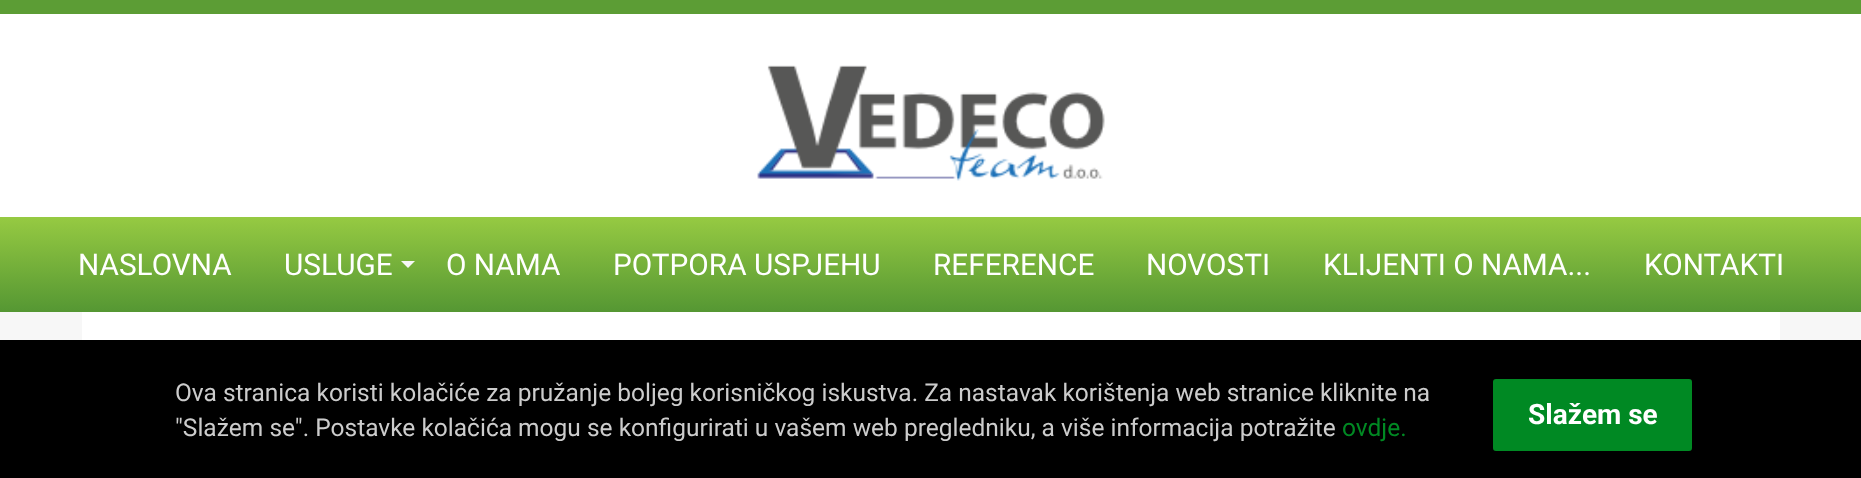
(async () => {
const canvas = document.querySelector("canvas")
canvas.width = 1861
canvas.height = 478
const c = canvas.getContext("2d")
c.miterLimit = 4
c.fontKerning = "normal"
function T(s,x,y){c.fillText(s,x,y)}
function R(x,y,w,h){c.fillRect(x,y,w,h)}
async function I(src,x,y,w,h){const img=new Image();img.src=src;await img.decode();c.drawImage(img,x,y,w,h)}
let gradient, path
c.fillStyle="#fff"
R(0,0,1861,478)
c.fillStyle="#5c9d35"
R(0,0,1861,14)
await I("1.png",757,65,348,116)
gradient = c.createLinearGradient(931,217,931,312)
gradient.addColorStop(0,"#96ca42")
gradient.addColorStop(1,"#559733")
c.fillStyle = gradient
R(0,217,1861,95)
c.font="29.75px Roboto"
c.fillStyle="#fff"
T("NASLOVNA",78,275)
T("USLUGE",284,275)
c.fillStyle="#f7f7f7"
path = new Path2D("M401 261h14l-7 7z")
c.fill(path)
c.fillStyle="#fff"
T("O NAMA",446,275)
T("POTPORA USPJEHU",613,275)
T("REFERENCE",933,275)
T("NOVOSTI",1146,275)
T("KLIJENTI O NAMA...",1323,275)
T("KONTAKTI",1644,275)
c.fillStyle="#f7f7f7"
R(0,312,1861,28)
c.fillStyle="#fff"
R(82,312,1698,28)
c.fillStyle="#000"
R(0,340,1861,138)
c.font="24.5px Roboto"
c.fillStyle="#ccc"
T("Ova stranica koristi kolačiće za pružanje boljeg korisničkog iskustva. Za nastavak korištenja web stranice kliknite na",175,401)
c.fillStyle="#008923"
c.beginPath()
c.roundRect(1491,377,203,76,5)
c.fill()
c.strokeStyle="#000"
c.lineWidth=4
c.stroke()
c.font="bold 28px Roboto"
c.fillStyle="#fff"
T("Slažem se",1528,424)
c.font="24.5px Roboto"
c.fillStyle="#ccc"
T("\"Slažem se\". Postavke kolačića mogu se konfigurirati u vašem web pregledniku, a više informacija potražite",175,436)
c.fillStyle="#008923"
T("ovdje.",1342,436)
})()
